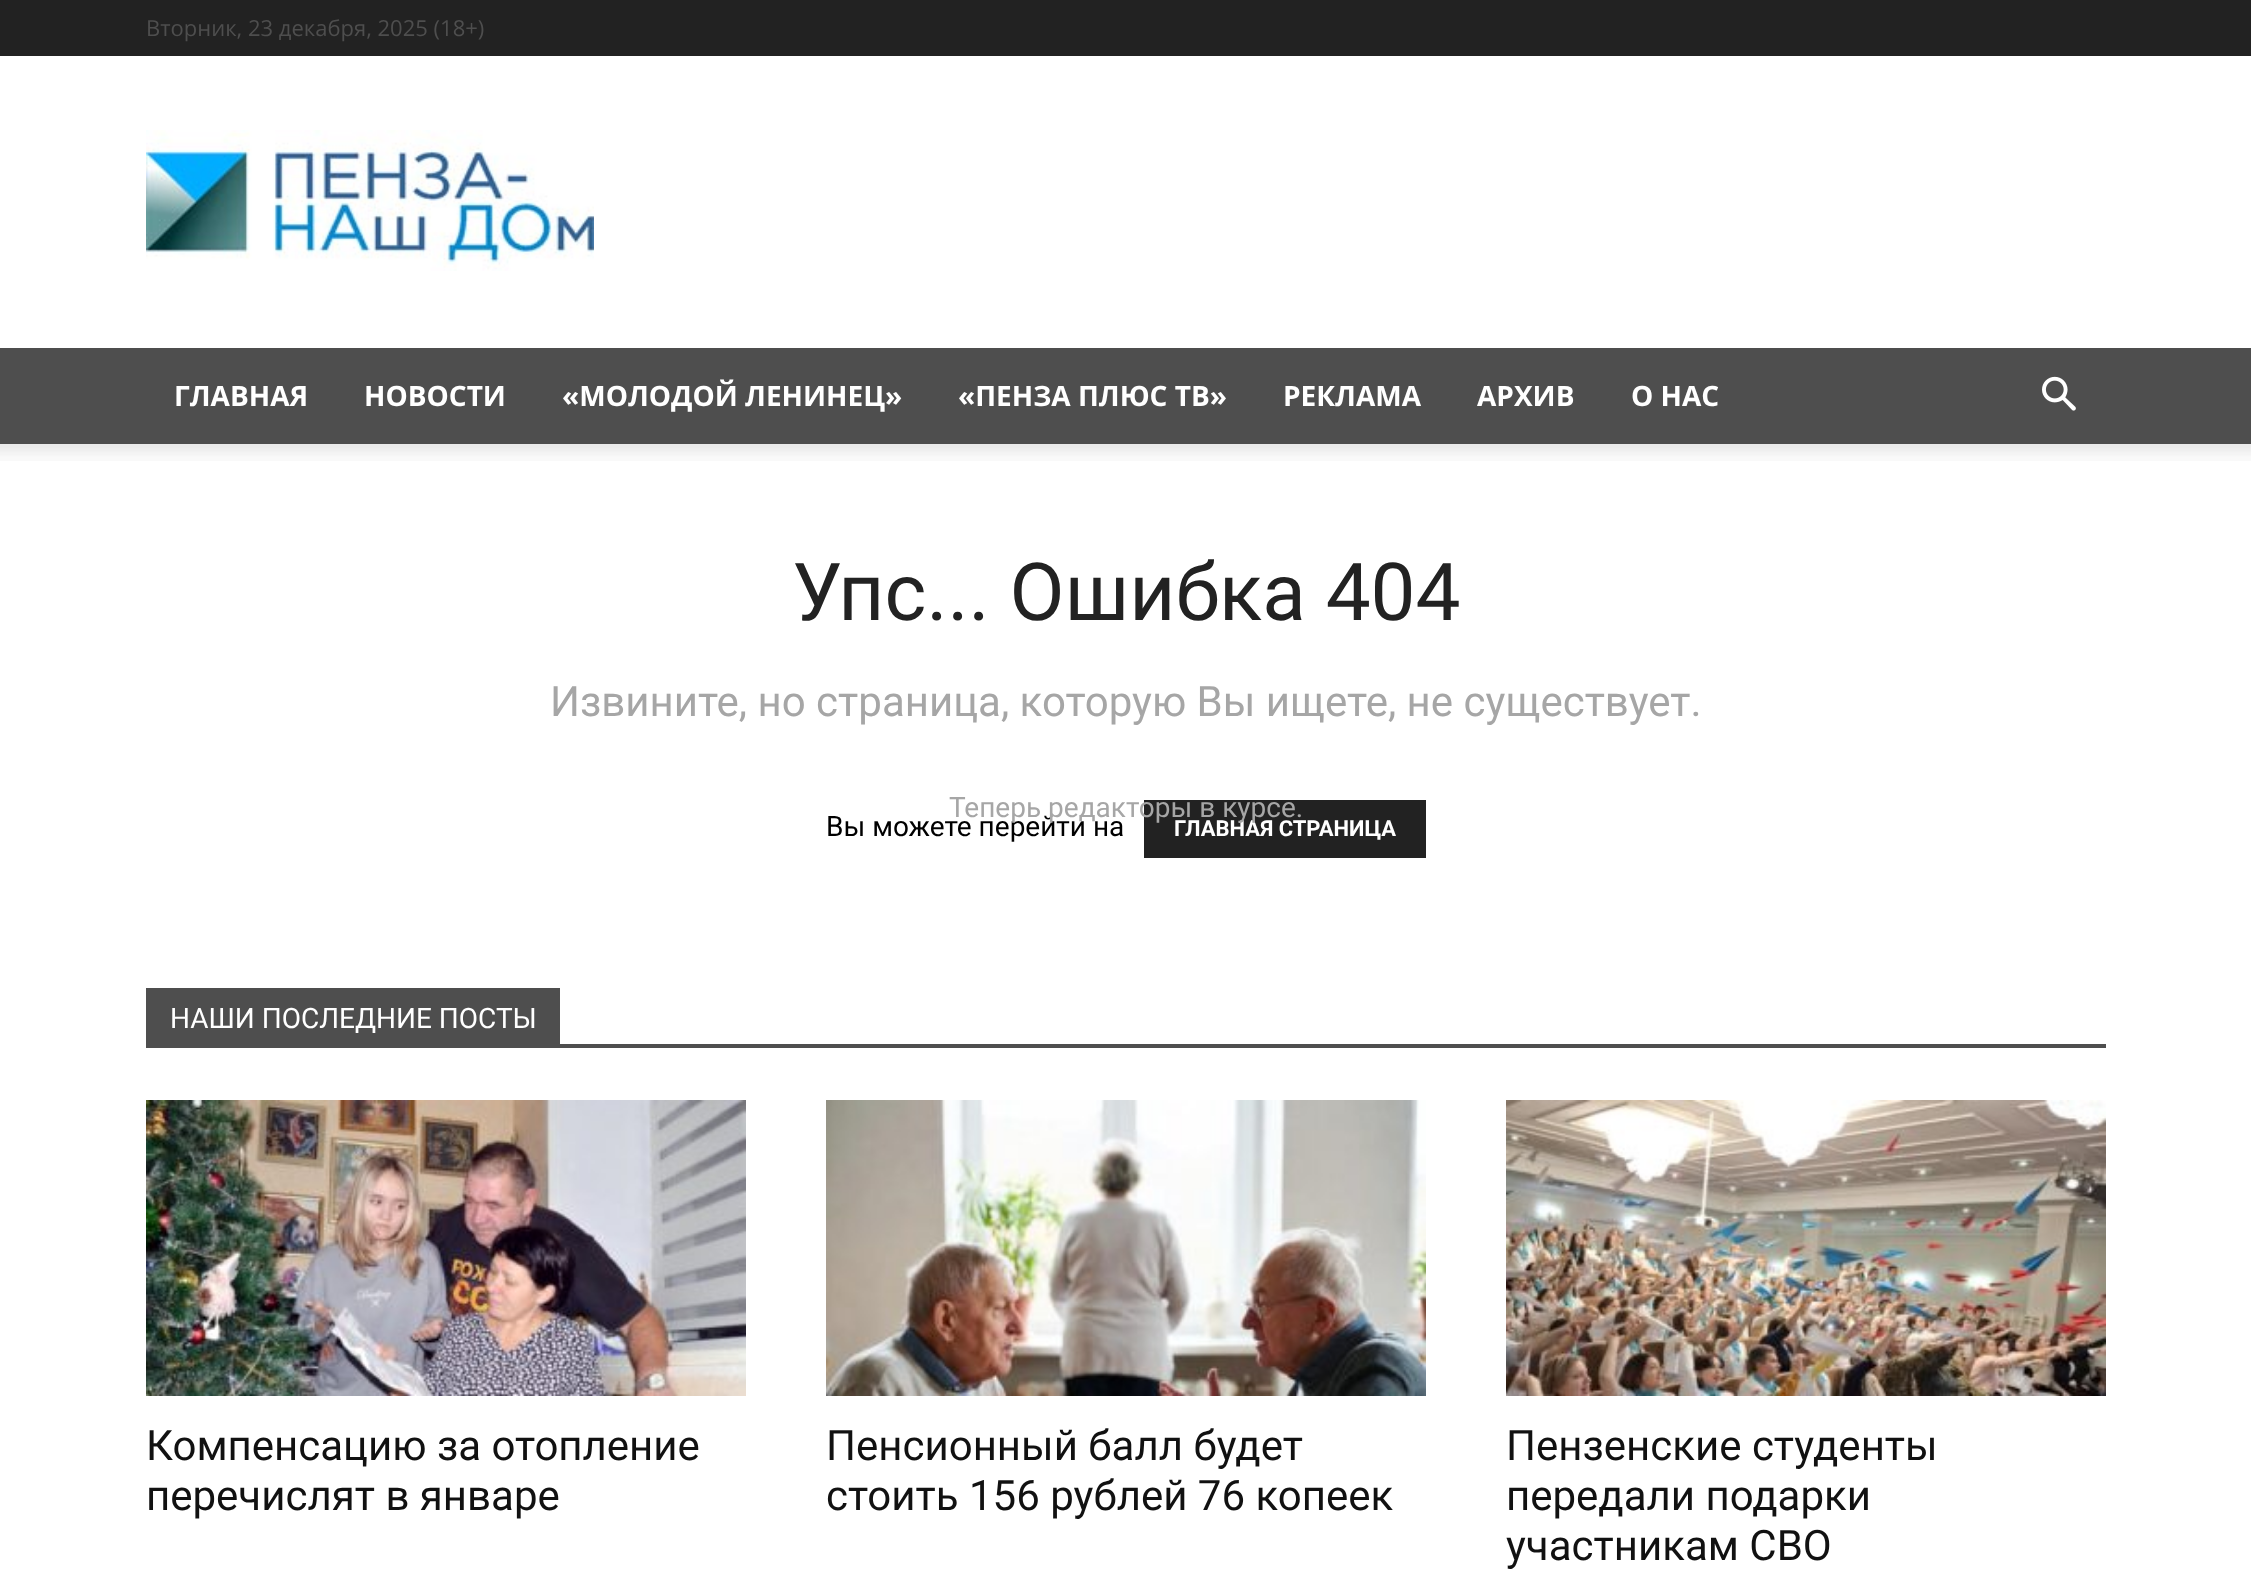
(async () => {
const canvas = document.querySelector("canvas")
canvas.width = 2251
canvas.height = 1580
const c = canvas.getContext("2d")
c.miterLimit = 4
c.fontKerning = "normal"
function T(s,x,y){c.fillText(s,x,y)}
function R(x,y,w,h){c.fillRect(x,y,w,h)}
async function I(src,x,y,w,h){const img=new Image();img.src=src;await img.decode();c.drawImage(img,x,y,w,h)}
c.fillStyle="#fff"
R(0,0,2251,1580)
c.fillStyle="#222"
R(0,0,2251,56)
c.font="22px Open Sans"
c.fillStyle="#4e4e4e"
T("Вторник, 23 декабря, 2025 (18+)",146,36)
await I("1.png",146,130,448,141)
R(0,348,2251,96)
c.font="bold 28px Open Sans"
c.fillStyle="#fff"
T("ГЛАВНАЯ",174,406)
T("НОВОСТИ",364,406)
T("«МОЛОДОЙ ЛЕНИНЕЦ»",562,406)
T("«ПЕНЗА ПЛЮС ТВ»",958,406)
T("РЕКЛАМА",1283,406)
T("АРХИВ",1477,406)
T("О НАС",1631,406)
await I("2.png",2042,376,34,35)
await I("3.png",0,444,2251,17)
c.font="80px Roboto"
c.fillStyle="#222"
T("Упс... Ошибка 404",792,620)
c.font="42px Roboto"
c.fillStyle="#a6a6a6"
T("Извините, но страница, которую Вы ищете, не существует.",550,716)
c.font="28px Roboto"
c.fillStyle="#000"
T("Вы можете перейти на",826,836)
c.fillStyle="#222"
R(1144,800,282,58)
c.font="bold 22px Roboto"
c.fillStyle="#fff"
T("ГЛАВНАЯ СТРАНИЦА",1174,836)
c.fillStyle="#4e4e4e"
R(146,1044,1960,4)
R(146,988,414,56)
c.font="28px Roboto"
c.fillStyle="#fff"
T("НАШИ ПОСЛЕДНИЕ ПОСТЫ",170,1028)
await I("4.png",146,1100,600,296)
c.font="42px Roboto"
c.fillStyle="#111"
T("Компенсацию за отопление",146,1460)
T("перечислят в январе",146,1510)
await I("5.png",826,1100,600,296)
T("Пенсионный балл будет",826,1460)
T("стоить 156 рублей 76 копеек",826,1510)
await I("6.png",1506,1100,600,296)
T("Пензенские студенты",1506,1460)
T("передали подарки",1506,1510)
T("участникам СВО",1506,1560)
c.font="28px Roboto"
c.fillStyle="#a6a6a6"
T("Теперь редакторы в курсе.",949,817)
})()
